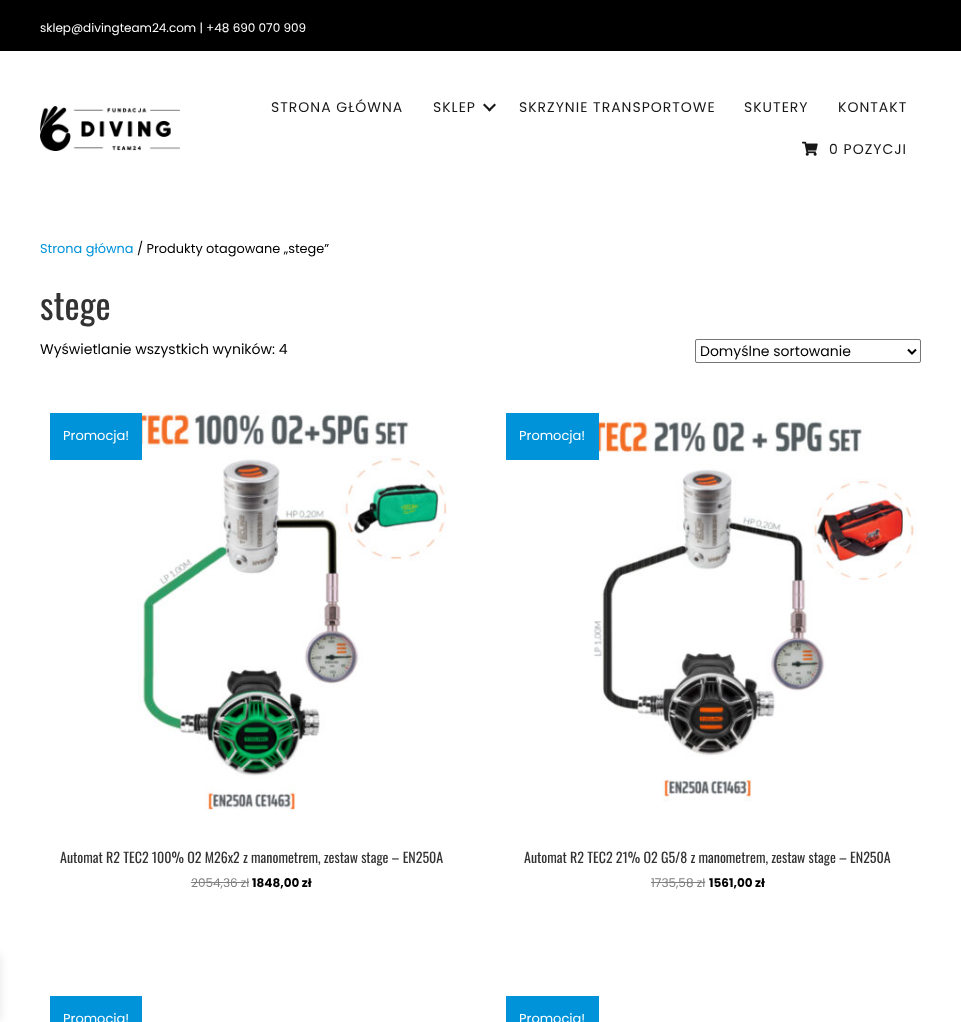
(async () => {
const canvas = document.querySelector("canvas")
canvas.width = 961
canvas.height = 1022
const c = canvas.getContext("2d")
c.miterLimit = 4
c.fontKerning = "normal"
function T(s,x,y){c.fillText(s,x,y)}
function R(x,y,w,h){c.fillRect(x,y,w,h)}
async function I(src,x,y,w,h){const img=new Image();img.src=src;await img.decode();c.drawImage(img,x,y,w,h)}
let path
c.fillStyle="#fff"
R(0,0,961,1022)
c.fillStyle="#0000001a"
c.filter="blur(5px)"
c.beginPath()
c.rect(-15,955,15,66)
c.fill()
c.filter="none"
c.fillStyle="#000"
R(0,0,961,51)
c.font="12px Poppins"
c.fillStyle="#fff"
T("sklep@divingteam24.com | +48 690 070 909",40,32)
await I("1.png",40,106,140,45)
c.letterSpacing="1px"
c.font="14px Poppins"
c.fillStyle="#171717"
T("STRONA GŁÓWNA",271,112)
T("SKLEP",433,112)
path = new Path2D("M494.5 103.5l1.5 1.5l-6.5 6.5l-1.5-1.5z")
c.fill(path)
path = new Path2D("M484.5 103.5l6.5 6.5l-1.5 1.5l-6.5-6.5z")
c.fill(path)
T("SKRZYNIE TRANSPORTOWE",519,112)
T("SKUTERY",744,112)
T("KONTAKT",838,112)
await I("2.png",802,141,16,15)
T("0 POZYCJI",829,154)
c.letterSpacing="0px"
c.font="12.9px Poppins"
c.fillStyle="#0093d9"
T("Strona główna",40,253)
c.fillStyle="#000"
T("/ Produkty otagowane „stege”",137,253)
c.font="36px Oswald"
c.fillStyle="#333"
T("stege",40,320)
c.font="14px Poppins"
c.fillStyle="#000"
T("Wyświetlanie wszystkich wyników: 4",40,354)
c.beginPath()
c.roundRect(695.5,339.5,225,23,1.5)
c.strokeStyle="#767676"
c.stroke()
path = new Path2D("M908 349.5l4 4l4-4")
c.strokeStyle="#000"
c.lineWidth=2
c.stroke(path)
T("Domyślne sortowanie",700,356)
await I("3.png",93,410,354,401)
c.fillStyle="#0093d9"
R(50,413,92,47)
c.font="13px Poppins"
c.fillStyle="#fff"
T("Promocja!",63,440)
c.font="14px Oswald"
c.fillStyle="#333"
T("Automat R2 TEC2 100% O2 M26x2 z manometrem, zestaw stage – EN250A",60,863)
c.font="12px Poppins"
c.fillStyle="#808080"
T("2054,36 zł",191,887)
R(191,882,58,1)
c.font="bold 12px Poppins"
c.fillStyle="#000"
T("1848,00 zł",252,887)
await I("4.png",549,418,368,384)
c.fillStyle="#0093d9"
R(506,413,93,47)
c.font="13px Poppins"
c.fillStyle="#fff"
T("Promocja!",519,440)
c.font="14px Oswald"
c.fillStyle="#333"
T("Automat R2 TEC2 21% O2 G5/8 z manometrem, zestaw stage – EN250A",524,863)
c.font="12px Poppins"
c.fillStyle="#808080"
T("1735,58 zł",651,887)
R(651,882,54,1)
c.font="bold 12px Poppins"
c.fillStyle="#000"
T("1561,00 zł",709,887)
c.fillStyle="#0093d9"
R(50,996,92,26)
c.font="13px Poppins"
c.fillStyle="#fff"
T("Promocja!",63,1023)
c.fillStyle="#0093d9"
R(506,996,93,26)
c.fillStyle="#fff"
T("Promocja!",519,1023)
})()
